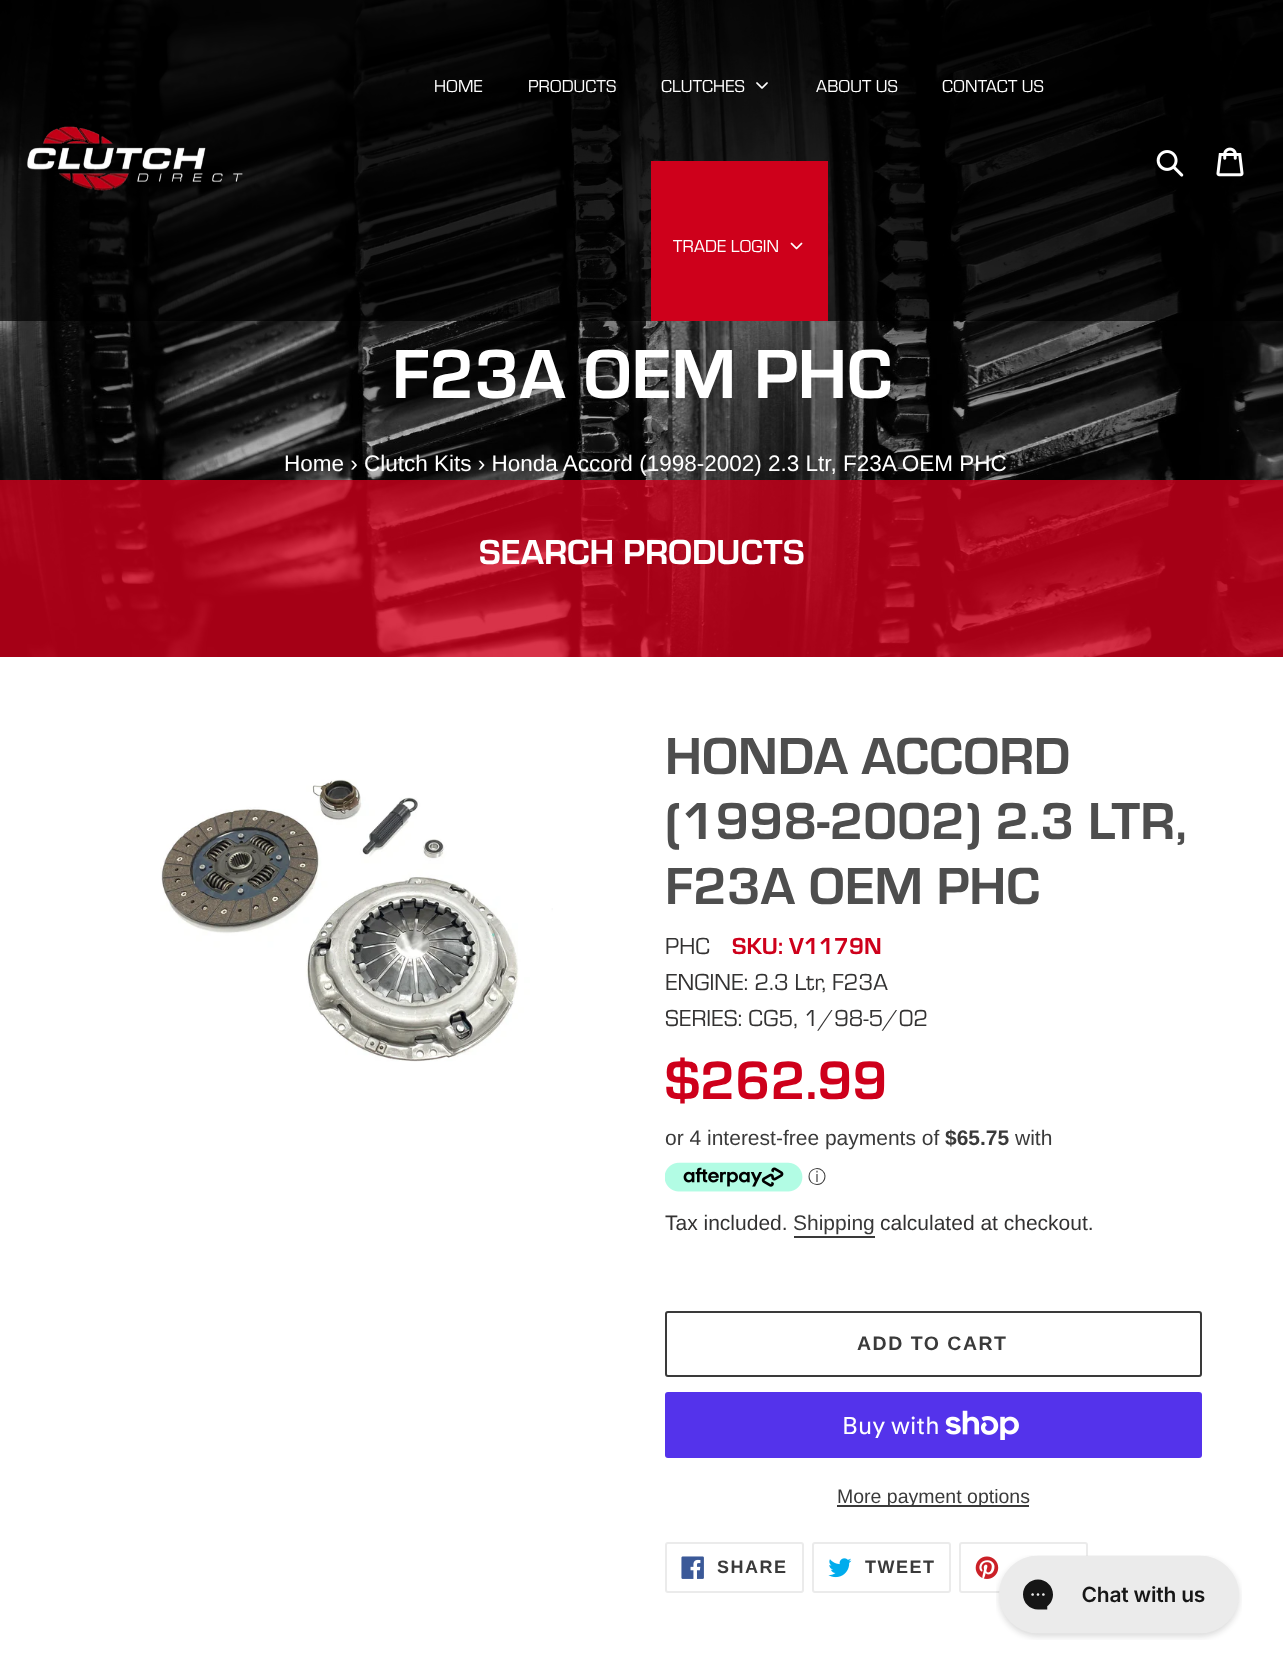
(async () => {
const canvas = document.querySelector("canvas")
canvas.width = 1283
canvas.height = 1673
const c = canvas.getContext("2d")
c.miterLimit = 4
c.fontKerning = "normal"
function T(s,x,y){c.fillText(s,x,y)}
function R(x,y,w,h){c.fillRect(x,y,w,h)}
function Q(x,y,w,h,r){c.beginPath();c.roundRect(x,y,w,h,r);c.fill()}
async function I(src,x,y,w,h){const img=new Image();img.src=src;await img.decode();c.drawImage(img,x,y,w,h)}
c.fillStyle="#fff"
R(0,0,1283,1673)
await I("6.png",0,0,1283,657)
c.fillStyle="#000000b3"
R(0,0,1283,321)
await I("1.png",27,126,216,65)
c.font="18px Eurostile"
c.fillStyle="#fff"
T("HOME",434,92)
T("PRODUCTS",528,92)
T("CLUTCHES",661,92)
await I("2.png",756,82,12,7)
T("ABOUT US",816,92)
T("CONTACT US",942,92)
c.fillStyle="#ce001b"
R(651,161,177,160)
c.fillStyle="#fff"
T("TRADE LOGIN",673,252)
await I("3.png",790,242,13,8)
await I("4.png",1156,150,28,27)
await I("5.png",1216,147,28,30)
c.font="bold 72px Eurostile"
T("F23A OEM PHC",392,398)
c.font="22.5px Liberation Sans"
T("Home › Clutch Kits › Honda Accord (1998-2002) 2.3 Ltr, F23A OEM PHC",284,471)
c.fillStyle="#ce001bcc"
R(0,480,1283,177)
c.font="bold 36px Eurostile"
c.fillStyle="#fff"
T("SEARCH PRODUCTS",479,564)
await I("7.png",160,779,393,283)
c.font="bold 54px Eurostile"
c.fillStyle="#4e4e4e"
T("HONDA ACCORD",665,774)
T("(1998-2002) 2.3 LTR,",665,839)
T("F23A OEM PHC",665,904)
c.font="24px Eurostile"
c.fillStyle="#333232"
T("PHC",665,954)
c.font="bold 24px Eurostile"
c.fillStyle="#ce001b"
T("SKU: V1179N",732,954)
c.font="24px Eurostile"
c.fillStyle="#333232"
T("ENGINE: 2.3 Ltr, F23A",665,990)
T("SERIES: CG5, 1/98-5/02",665,1026)
c.font="bold 56px Eurostile"
c.fillStyle="#ce001b"
T("$262.99",665,1099)
c.font="21px Liberation Sans"
c.fillStyle="#3a3a3a"
T("or 4 interest-free payments of",665,1145)
c.font="bold 21px Liberation Sans"
T("$65.75",945,1145)
c.font="21px Liberation Sans"
T("with",1015,1145)
await I("8.png",665,1162,138,30)
c.font="500 18px WenQuanYi Zen Hei"
T("ⓘ",808,1183)
c.font="21px Liberation Sans"
c.fillStyle="#333232"
T("Tax included.",665,1230)
c.fillStyle="#3a3a3a"
T("Shipping",793,1230)
R(794,1236,81,2)
c.fillStyle="#333232"
T("calculated at checkout.",880,1230)
c.beginPath()
c.roundRect(666,1312,535,64,2)
c.strokeStyle="#3a3a3a"
c.lineWidth=2
c.stroke()
c.letterSpacing="1.5px"
c.font="bold 19.5px Liberation Sans"
c.fillStyle="#3a3a3a"
T("ADD TO CART",857,1350)
c.fillStyle="#5433eb"
Q(665,1392,537,66,3)
c.letterSpacing="0px"
c.font="24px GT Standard"
c.fillStyle="#fff"
T("Buy with",842,1434)
await I("9.png",945,1410,74,30)
c.fillStyle="#3a3a3a"
R(837,1505,192,2)
c.font="19.5px Liberation Sans"
T("More payment options",837,1503)
c.beginPath()
c.roundRect(666,1543,137,49,2)
c.strokeStyle="#ebebeb"
c.stroke()
await I("10.png",681,1556,23,23)
c.letterSpacing="1.5px"
c.font="bold 18px Liberation Sans"
T("SHARE",717,1573)
c.beginPath()
c.roundRect(813,1543,137,49,2)
c.stroke()
await I("11.png",828,1558,24,20)
T("TWEET",865,1573)
c.beginPath()
c.roundRect(960,1543,127,49,2)
c.stroke()
await I("12.png",975,1556,24,23)
await I("13.png",996,1555,246,85)
})()
